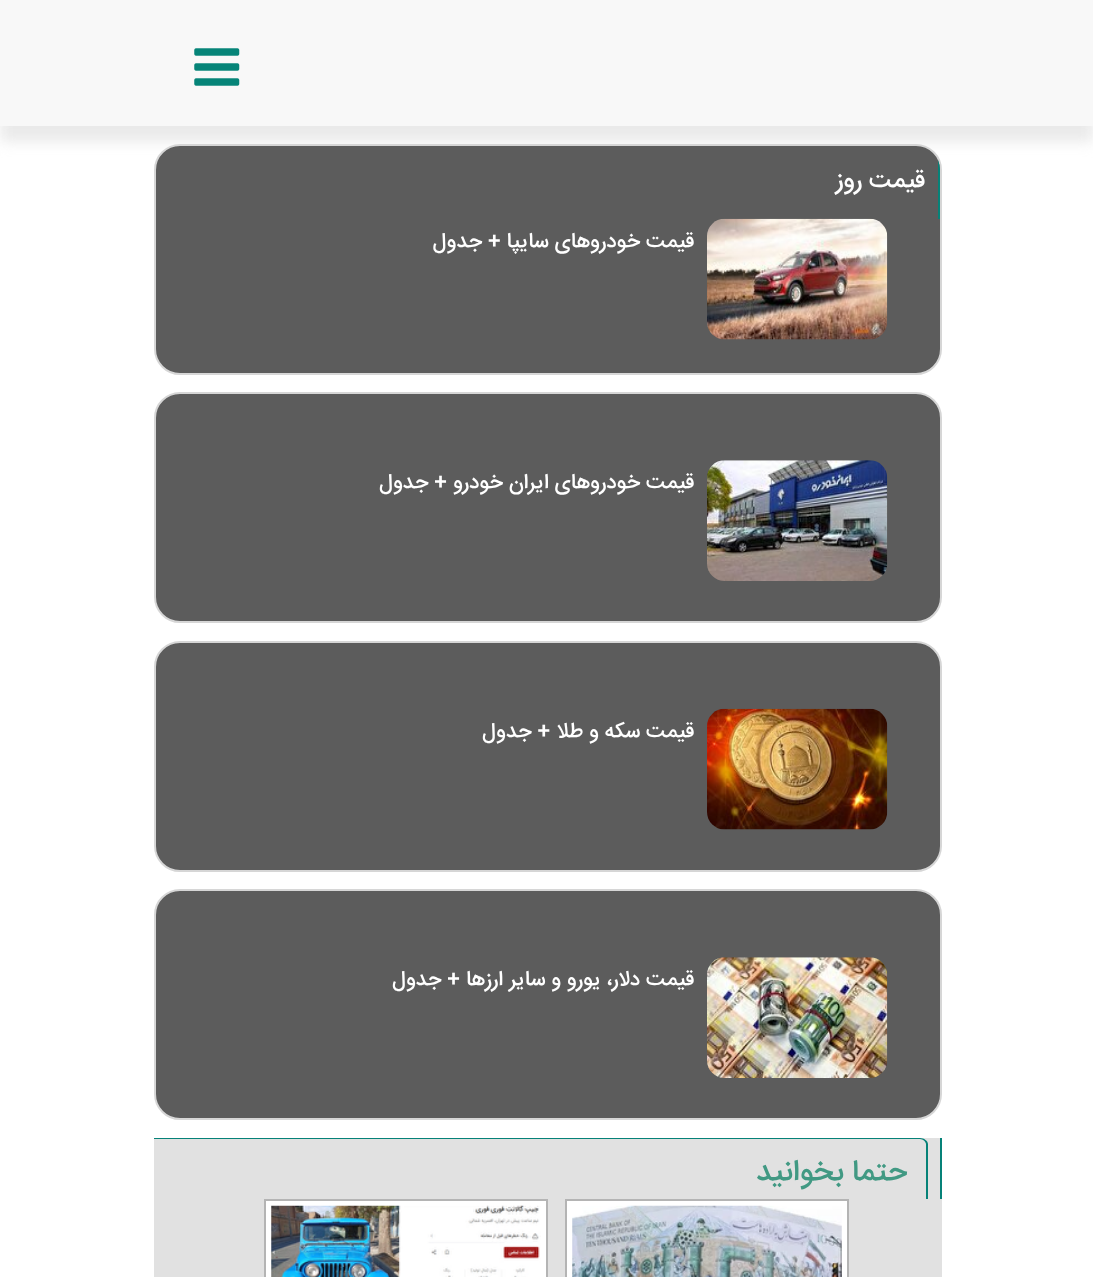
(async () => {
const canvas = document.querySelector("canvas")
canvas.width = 1093
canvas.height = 1277
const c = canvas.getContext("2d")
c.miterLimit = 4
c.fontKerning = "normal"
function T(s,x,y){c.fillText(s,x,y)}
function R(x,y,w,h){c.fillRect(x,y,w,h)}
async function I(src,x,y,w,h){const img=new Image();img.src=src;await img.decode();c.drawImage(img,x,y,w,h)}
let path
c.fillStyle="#fff"
R(0,0,1093,1277)
c.fillStyle="#e3e3e3bf"
c.filter="blur(7px)"
c.beginPath()
c.rect(0,16,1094,126)
c.fill()
c.filter="none"
c.fillStyle="#f8f8f8"
R(0,0,1093,126)
await I("1.png",194,48,46,38)
c.fillStyle="#5c5c5c"
c.beginPath()
c.roundRect(155,145,786,229,25)
c.fill()
c.strokeStyle="#d6d6d6"
c.lineWidth=2
c.stroke()
c.save()
c.beginPath()
c.roundRect(156,145,784,228,25)
c.clip()
c.fillStyle="#068278"
R(938,160,2,59)
c.restore()
c.direction="rtl"
c.font="500 24.5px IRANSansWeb"
c.fillStyle="#fff"
T("قیمت روز",925,187)
await I("2.png",707,218,181,122)
c.font="500 21px IRANSansWeb"
T("قیمت خودرو‌های سایپا + جدول",694,247)
c.fillStyle="#5c5c5c"
c.beginPath()
c.roundRect(155,393,786,229,25)
c.fill()
c.stroke()
await I("3.png",707,460,181,121)
c.fillStyle="#fff"
T("قیمت خودرو‌های ایران خودرو + جدول",694,488)
c.fillStyle="#5c5c5c"
c.beginPath()
c.roundRect(155,642,786,229,25)
c.fill()
c.stroke()
await I("4.png",707,708,181,122)
c.fillStyle="#fff"
T("قیمت سکه و طلا + جدول",694,737)
c.fillStyle="#5c5c5c"
c.beginPath()
c.roundRect(155,890,786,229,25)
c.fill()
c.stroke()
await I("5.png",707,957,181,121)
c.fillStyle="#fff"
T("قیمت دلار، یورو و سایر ارز‌ها + جدول",694,985)
c.fillStyle="#e1e1e1"
R(154,1138,788,139)
c.fillStyle="#068278"
R(940,1138,2,61)
path = new Path2D("M154 1138h766c4 0 8 3 8 6v55h-774zm0 1h766c3 0 6 3 6 5v55h-772z")
c.fill(path,"evenodd")
c.font="500 29.75px IRANSansWeb"
c.fillStyle="#419983"
T("حتما بخوانید",907,1180)
c.fillStyle="#fff"
c.beginPath()
c.rect(566,1200,282,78)
c.fill()
c.strokeStyle="#b4b4b4"
c.stroke()
await I("6.png",572,1205,270,72)
c.beginPath()
c.rect(265,1200,282,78)
c.fill()
c.stroke()
await I("7.png",271,1205,270,72)
})()
